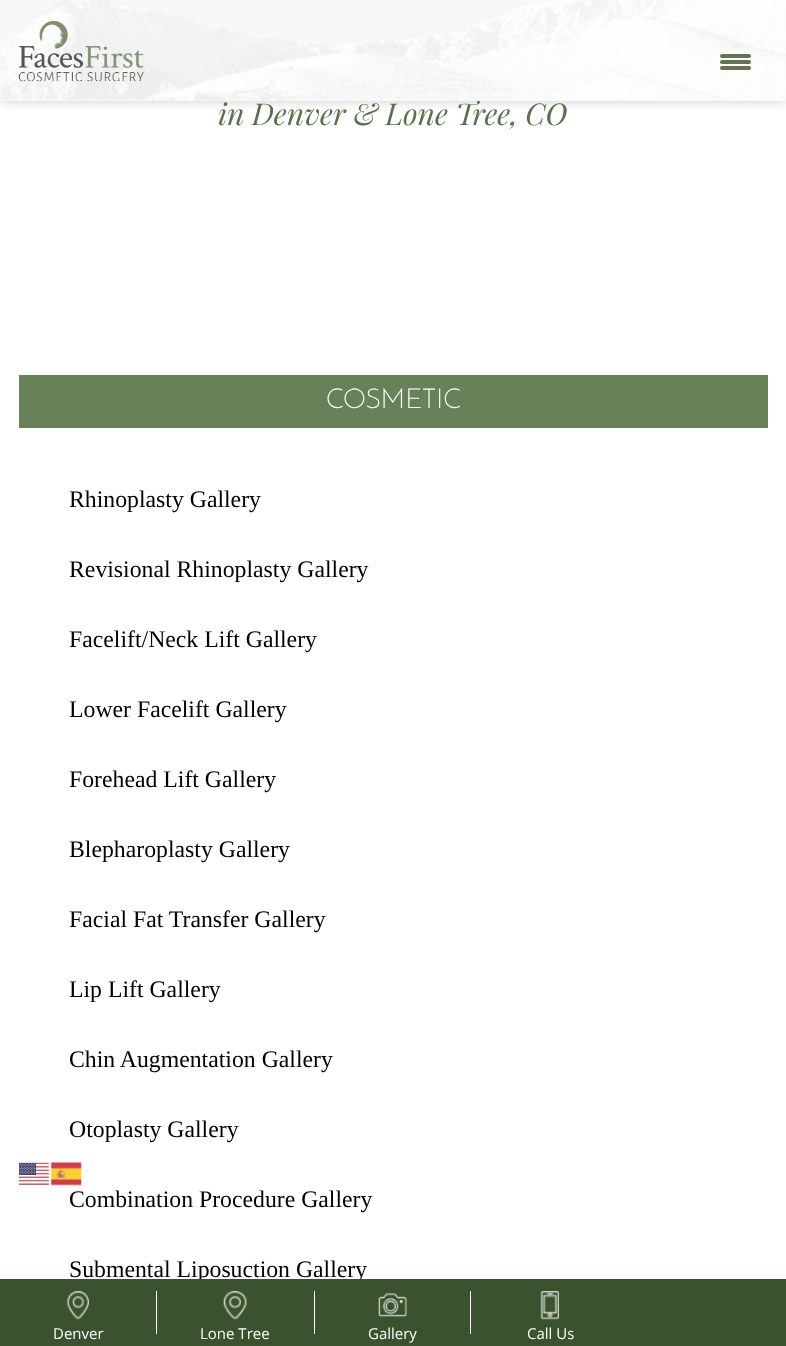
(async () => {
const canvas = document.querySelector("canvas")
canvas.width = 786
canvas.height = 1346
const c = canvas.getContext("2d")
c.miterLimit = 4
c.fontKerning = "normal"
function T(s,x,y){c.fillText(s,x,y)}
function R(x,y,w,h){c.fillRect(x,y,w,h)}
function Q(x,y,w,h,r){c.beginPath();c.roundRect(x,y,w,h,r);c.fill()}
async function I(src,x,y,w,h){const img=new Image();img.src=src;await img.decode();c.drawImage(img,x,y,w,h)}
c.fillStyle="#fff"
R(0,0,786,1346)
c.fillStyle="#00000033"
c.filter="blur(6px)"
c.beginPath()
c.rect(0,0,786,101)
c.fill()
c.filter="none"
c.font="italic 30px Playfair Display"
c.fillStyle="#587349"
T("in Denver & Lone Tree, CO",218,125)
c.fillStyle="#f8f8f8"
R(0,0,786,101)
await I("1.png",1,0,785,101)
await I("2.png",18,21,126,61)
c.fillStyle="#637450"
Q(720,60,31,4,2)
Q(720,54,31,4,2)
Q(720,66,31,4,2)
await I("3.png",19,1162,30,23)
await I("4.png",51,1162,31,24)
c.fillStyle="#678258"
R(19,375,749,53)
c.font="300 27.5px Josefin Sans"
c.fillStyle="#fff"
T("COSMETIC",326,408)
c.font="23.75px Liberation Serif"
c.fillStyle="#000"
T("Rhinoplasty Gallery",69,507)
T("Revisional Rhinoplasty Gallery",69,577)
T("Facelift/Neck Lift Gallery",69,647)
T("Lower Facelift Gallery",69,717)
T("Forehead Lift Gallery",69,787)
T("Blepharoplasty Gallery",69,857)
T("Facial Fat Transfer Gallery",69,927)
T("Lip Lift Gallery",69,997)
T("Chin Augmentation Gallery",69,1067)
T("Otoplasty Gallery",69,1137)
T("Combination Procedure Gallery",69,1207)
T("Submental Liposuction Gallery",69,1277)
c.fillStyle="#3a522d"
R(0,1279,786,67)
c.fillStyle="#fff"
R(156,1291,1,43)
await I("5.png",66,1291,23,29)
c.font="15px Open Sans"
T("Denver",53,1339)
R(314,1291,1,43)
await I("6.png",223,1291,24,29)
T("Lone Tree",200,1339)
R(470,1291,1,43)
await I("7.png",378,1293,29,24)
T("Gallery",368,1339)
await I("8.png",540,1291,19,29)
T("Call Us",527,1339)
})()
